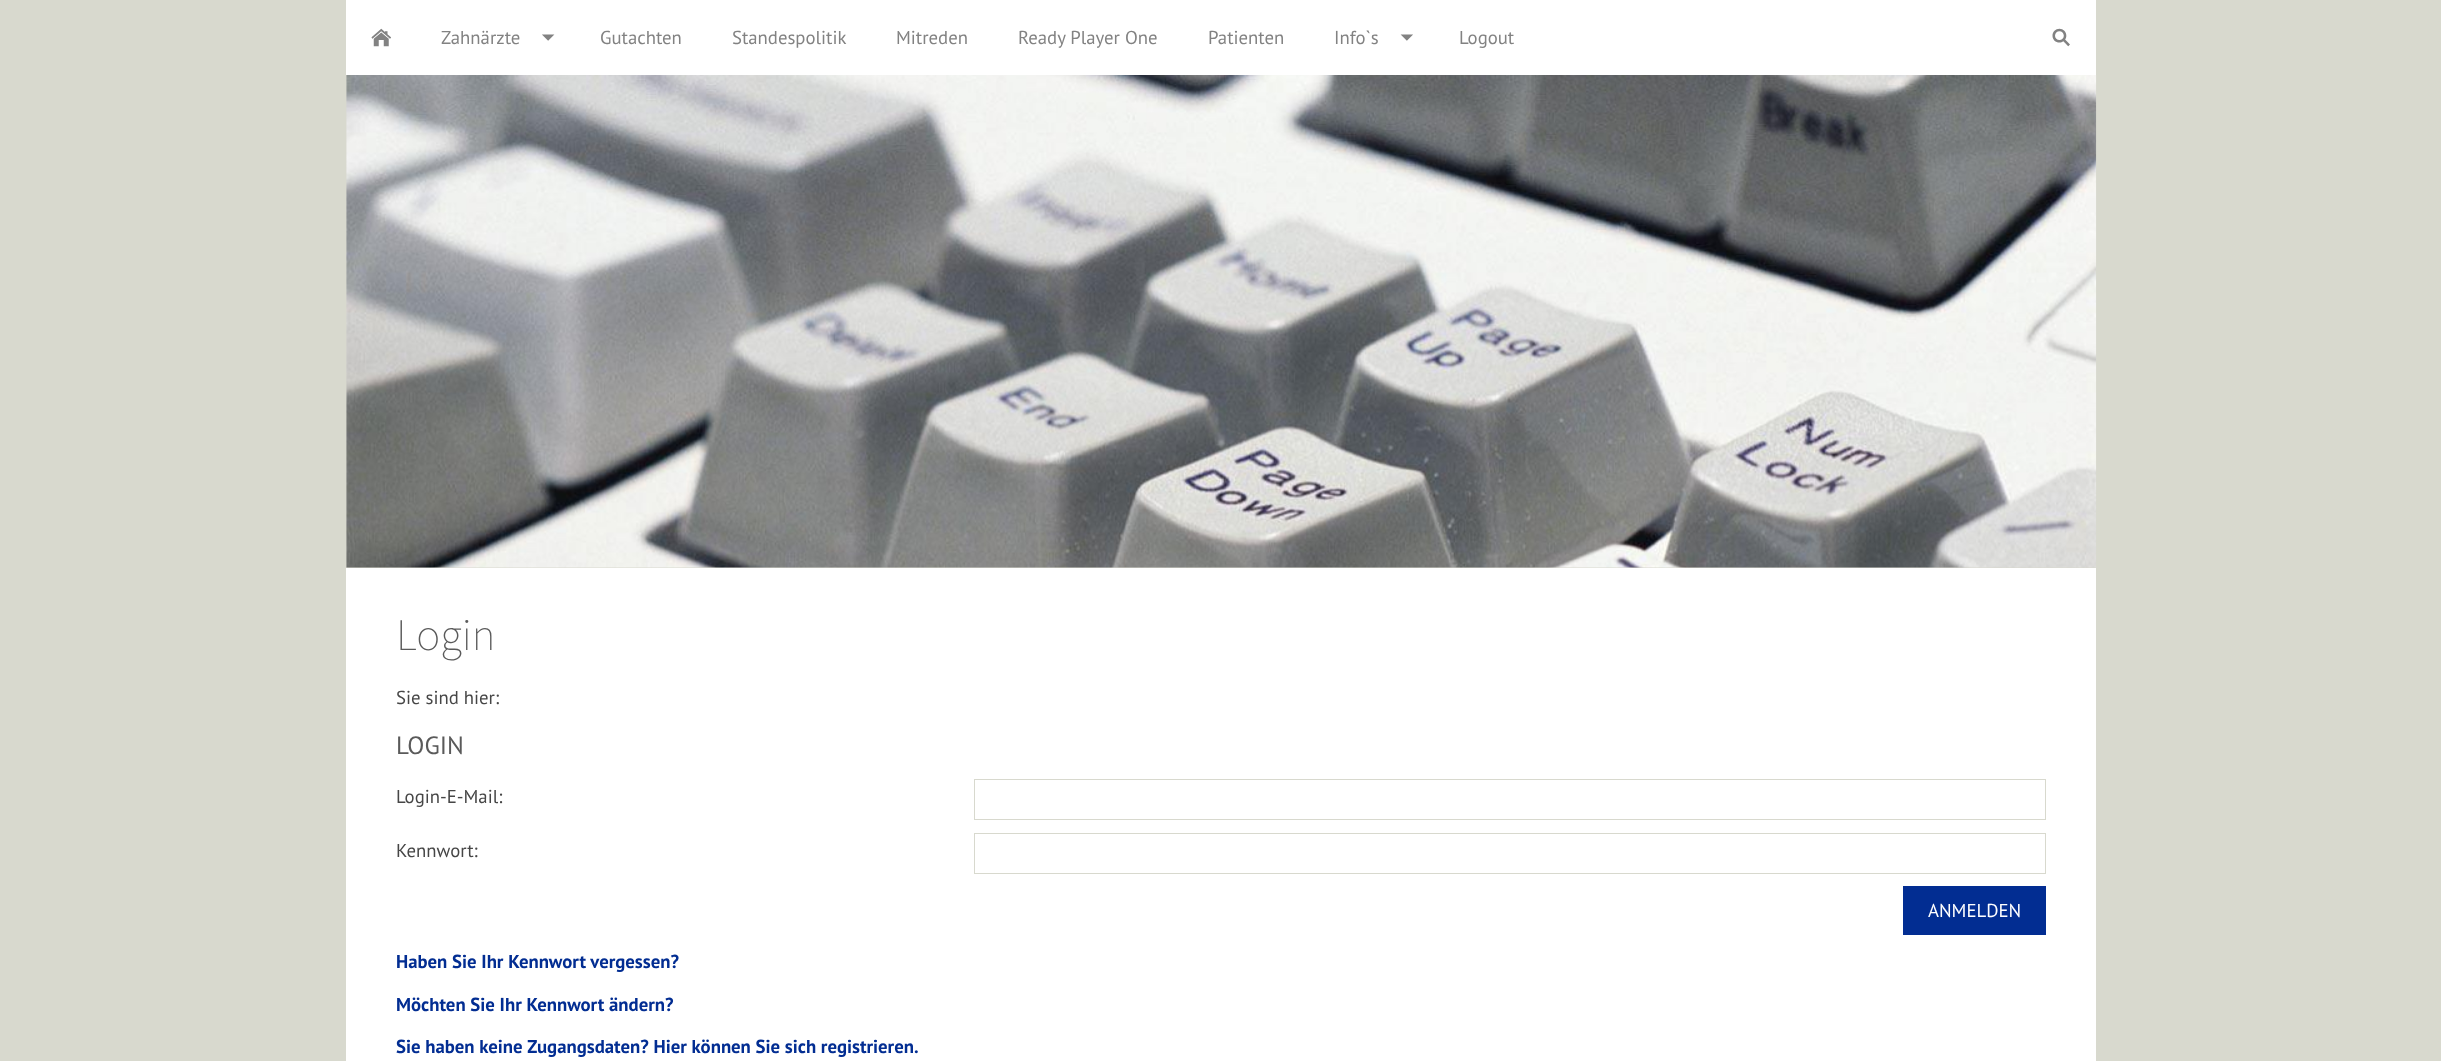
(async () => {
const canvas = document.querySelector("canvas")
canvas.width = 2441
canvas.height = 1061
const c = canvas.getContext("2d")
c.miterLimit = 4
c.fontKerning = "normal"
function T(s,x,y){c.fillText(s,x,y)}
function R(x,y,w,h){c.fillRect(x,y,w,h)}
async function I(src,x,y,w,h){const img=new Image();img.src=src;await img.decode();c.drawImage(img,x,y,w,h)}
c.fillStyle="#d8d9ce"
R(0,0,2441,1061)
c.fillStyle="#fff"
R(346,0,1750,75)
await I("1.png",371,28,20,19)
await I("2.png",542,34,13,7)
c.font="18.75px PT Sans"
c.fillStyle="#828282"
T("Zahnärzte",441,44)
T("Gutachten",600,44)
T("Standespolitik",732,44)
T("Mitreden",896,44)
T("Ready Player One",1018,44)
T("Patienten",1208,44)
await I("3.png",1400,34,13,7)
T("Info`s",1334,44)
T("Logout",1459,44)
await I("4.png",2052,28,18,19)
await I("5.png",346,75,1751,493)
c.fillStyle="#fff"
R(346,568,1750,493)
c.font="200 45px Source Sans Pro"
c.fillStyle="#5a5a5a"
T("Login",396,650)
c.font="18.75px PT Sans"
c.fillStyle="#464646"
T("Sie sind hier:",396,704)
c.font="25px PT Sans"
c.fillStyle="#5a5a5a"
T("LOGIN",396,754)
c.font="18.75px PT Sans"
c.fillStyle="#464646"
T("Login-E-Mail:",396,803)
c.strokeStyle="#d8d9ce"
c.strokeRect(974.5,779.5,1071,40)
T("Kennwort:",396,857)
c.strokeRect(974.5,833.5,1071,40)
c.fillStyle="#022d92"
R(1903,886,143,49)
c.fillStyle="#fff"
T("ANMELDEN",1928,917)
c.font="bold 18.75px PT Sans"
c.fillStyle="#022d92"
T("Haben Sie Ihr Kennwort vergessen?",396,968)
T("Möchten Sie Ihr Kennwort ändern?",396,1011)
T("Sie haben keine Zugangsdaten? Hier können Sie sich registrieren.",396,1053)
})()
